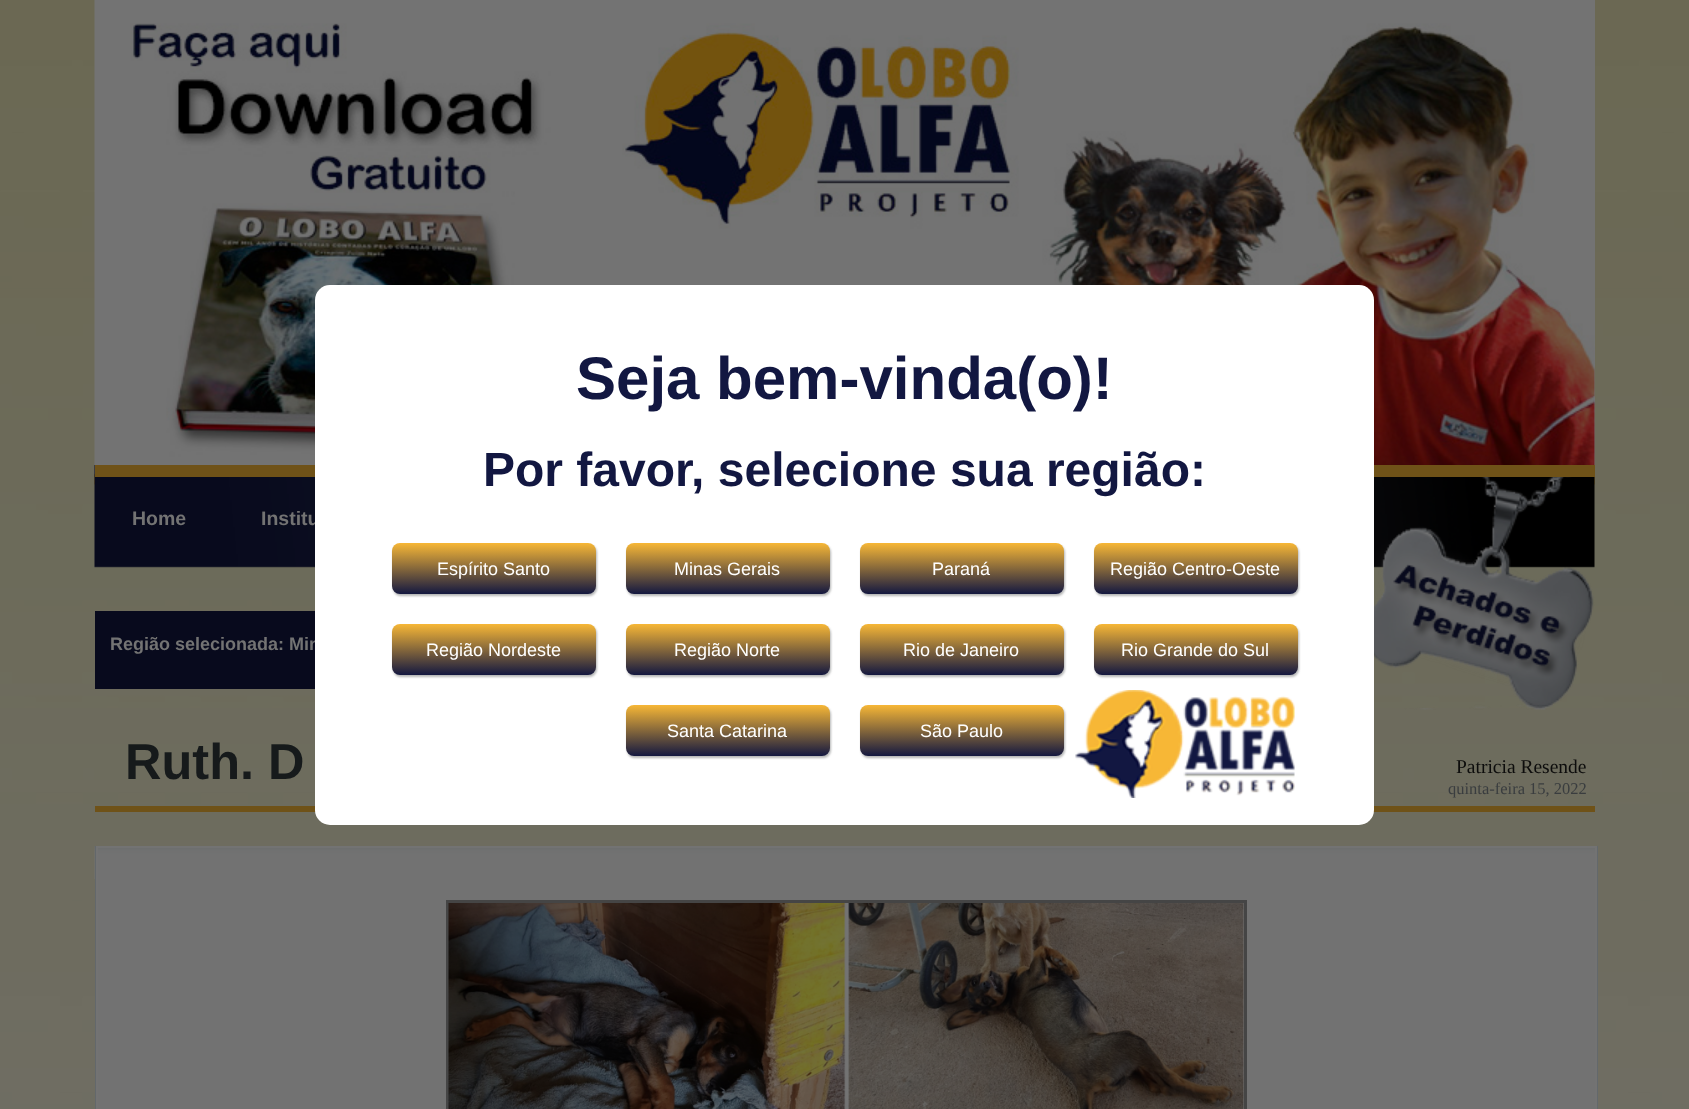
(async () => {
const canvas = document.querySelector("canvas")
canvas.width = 1689
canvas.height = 1109
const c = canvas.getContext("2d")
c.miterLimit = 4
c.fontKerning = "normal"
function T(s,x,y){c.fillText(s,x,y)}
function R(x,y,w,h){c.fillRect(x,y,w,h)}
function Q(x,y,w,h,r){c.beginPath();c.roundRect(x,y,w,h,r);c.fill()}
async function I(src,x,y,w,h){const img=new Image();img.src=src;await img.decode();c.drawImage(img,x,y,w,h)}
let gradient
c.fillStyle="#fff"
R(0,0,1689,1109)
await I("1.png",0,0,1689,1109)
c.fillStyle="#737373"
R(1594,0,1,465)
await I("2.png",94,0,1501,485)
await I("3.png",94,465,1501,245)
c.fillStyle="#6f5218"
R(95,465,1500,12)
c.font="bold 19.5px Liberation Sans"
c.fillStyle="#737373"
T("Home",132,525)
T("Institu",261,525)
c.fillStyle="#080a1d"
R(95,611,220,78)
c.font="bold 18px Liberation Sans"
c.fillStyle="#737373"
T("Região selecionada: Min",110,650)
c.fillStyle="#6f5218"
R(95,806,1500,6)
c.fillStyle="#fff"
Q(315,285,1059,540,15)
await I("4.png",1075,690,220,108)
c.font="bold 60px Liberation Sans"
c.fillStyle="#121741"
T("Seja bem-vinda(o)!",576,399)
c.font="bold 48px Liberation Sans"
T("Por favor, selecione sua região:",483,486)
c.fillStyle="#b4b5b5"
c.filter="blur(1px)"
c.beginPath()
c.roundRect(393,545,204,51,8)
c.fill()
c.filter="none"
gradient = c.createLinearGradient(494,543,494,594)
gradient.addColorStop(0,"#f7b736")
gradient.addColorStop(1,"#141840")
c.fillStyle = gradient
Q(392,543,204,51,8)
c.font="18px Liberation Sans"
c.fillStyle="#fff"
T("Espírito Santo",437,575)
c.fillStyle="#b4b5b5"
c.filter="blur(1px)"
c.beginPath()
c.roundRect(627,545,204,51,8)
c.fill()
c.filter="none"
gradient = c.createLinearGradient(728,543,728,594)
gradient.addColorStop(0,"#f7b736")
gradient.addColorStop(1,"#141840")
c.fillStyle = gradient
Q(626,543,204,51,8)
c.fillStyle="#fff"
T("Minas Gerais",674,575)
c.fillStyle="#b4b5b5"
c.filter="blur(1px)"
c.beginPath()
c.roundRect(861,545,204,51,8)
c.fill()
c.filter="none"
gradient = c.createLinearGradient(962,543,962,594)
gradient.addColorStop(0,"#f7b736")
gradient.addColorStop(1,"#141840")
c.fillStyle = gradient
Q(860,543,204,51,8)
c.fillStyle="#fff"
T("Paraná",932,575)
c.fillStyle="#b4b5b5"
c.filter="blur(1px)"
c.beginPath()
c.roundRect(1095,545,204,51,8)
c.fill()
c.filter="none"
gradient = c.createLinearGradient(1196,543,1196,594)
gradient.addColorStop(0,"#f7b736")
gradient.addColorStop(1,"#141840")
c.fillStyle = gradient
Q(1094,543,204,51,8)
c.fillStyle="#fff"
T("Região Centro-Oeste",1110,575)
c.fillStyle="#b4b5b5"
c.filter="blur(1px)"
c.beginPath()
c.roundRect(393,626,204,51,8)
c.fill()
c.filter="none"
gradient = c.createLinearGradient(494,624,494,675)
gradient.addColorStop(0,"#f7b736")
gradient.addColorStop(1,"#141840")
c.fillStyle = gradient
Q(392,624,204,51,8)
c.fillStyle="#fff"
T("Região Nordeste",426,656)
c.fillStyle="#b4b5b5"
c.filter="blur(1px)"
c.beginPath()
c.roundRect(627,626,204,51,8)
c.fill()
c.filter="none"
gradient = c.createLinearGradient(728,624,728,675)
gradient.addColorStop(0,"#f7b736")
gradient.addColorStop(1,"#141840")
c.fillStyle = gradient
Q(626,624,204,51,8)
c.fillStyle="#fff"
T("Região Norte",674,656)
c.fillStyle="#b4b5b5"
c.filter="blur(1px)"
c.beginPath()
c.roundRect(861,626,204,51,8)
c.fill()
c.filter="none"
gradient = c.createLinearGradient(962,624,962,675)
gradient.addColorStop(0,"#f7b736")
gradient.addColorStop(1,"#141840")
c.fillStyle = gradient
Q(860,624,204,51,8)
c.fillStyle="#fff"
T("Rio de Janeiro",903,656)
c.fillStyle="#b4b5b5"
c.filter="blur(1px)"
c.beginPath()
c.roundRect(1095,626,204,51,8)
c.fill()
c.filter="none"
gradient = c.createLinearGradient(1196,624,1196,675)
gradient.addColorStop(0,"#f7b736")
gradient.addColorStop(1,"#141840")
c.fillStyle = gradient
Q(1094,624,204,51,8)
c.fillStyle="#fff"
T("Rio Grande do Sul",1121,656)
c.fillStyle="#b4b5b5"
c.filter="blur(1px)"
c.beginPath()
c.roundRect(627,707,204,51,8)
c.fill()
c.filter="none"
gradient = c.createLinearGradient(728,705,728,756)
gradient.addColorStop(0,"#f7b736")
gradient.addColorStop(1,"#141840")
c.fillStyle = gradient
Q(626,705,204,51,8)
c.fillStyle="#fff"
T("Santa Catarina",667,737)
c.fillStyle="#b4b5b5"
c.filter="blur(1px)"
c.beginPath()
c.roundRect(861,707,204,51,8)
c.fill()
c.filter="none"
gradient = c.createLinearGradient(962,705,962,756)
gradient.addColorStop(0,"#f7b736")
gradient.addColorStop(1,"#141840")
c.fillStyle = gradient
Q(860,705,204,51,8)
c.fillStyle="#fff"
T("São Paulo",920,737)
c.font="bold 50.5px Liberation Sans"
c.fillStyle="#161a1b"
T("Ruth. D",125,779)
c.font="19.5px Liberation Serif"
c.fillStyle="#0d0d0c"
T("Patricia Resende",1456,773)
c.font="16.5px Liberation Serif"
c.fillStyle="#3a3d3f"
T("quinta-feira 15, 2022",1448,794)
c.fillStyle="#727272"
R(98,879,1497,230)
await I("5.png",94,846,1501,33)
c.fillStyle="#63686b"
R(1597,846,1,263)
R(95,846,1,263)
c.fillStyle="#737373"
R(96,846,1500,2)
R(1595,846,2,263)
R(96,846,2,263)
c.strokeStyle="#454545"
c.lineWidth=3
c.strokeRect(447.5,901.5,798,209)
await I("6.png",448,903,796,206)
})()
